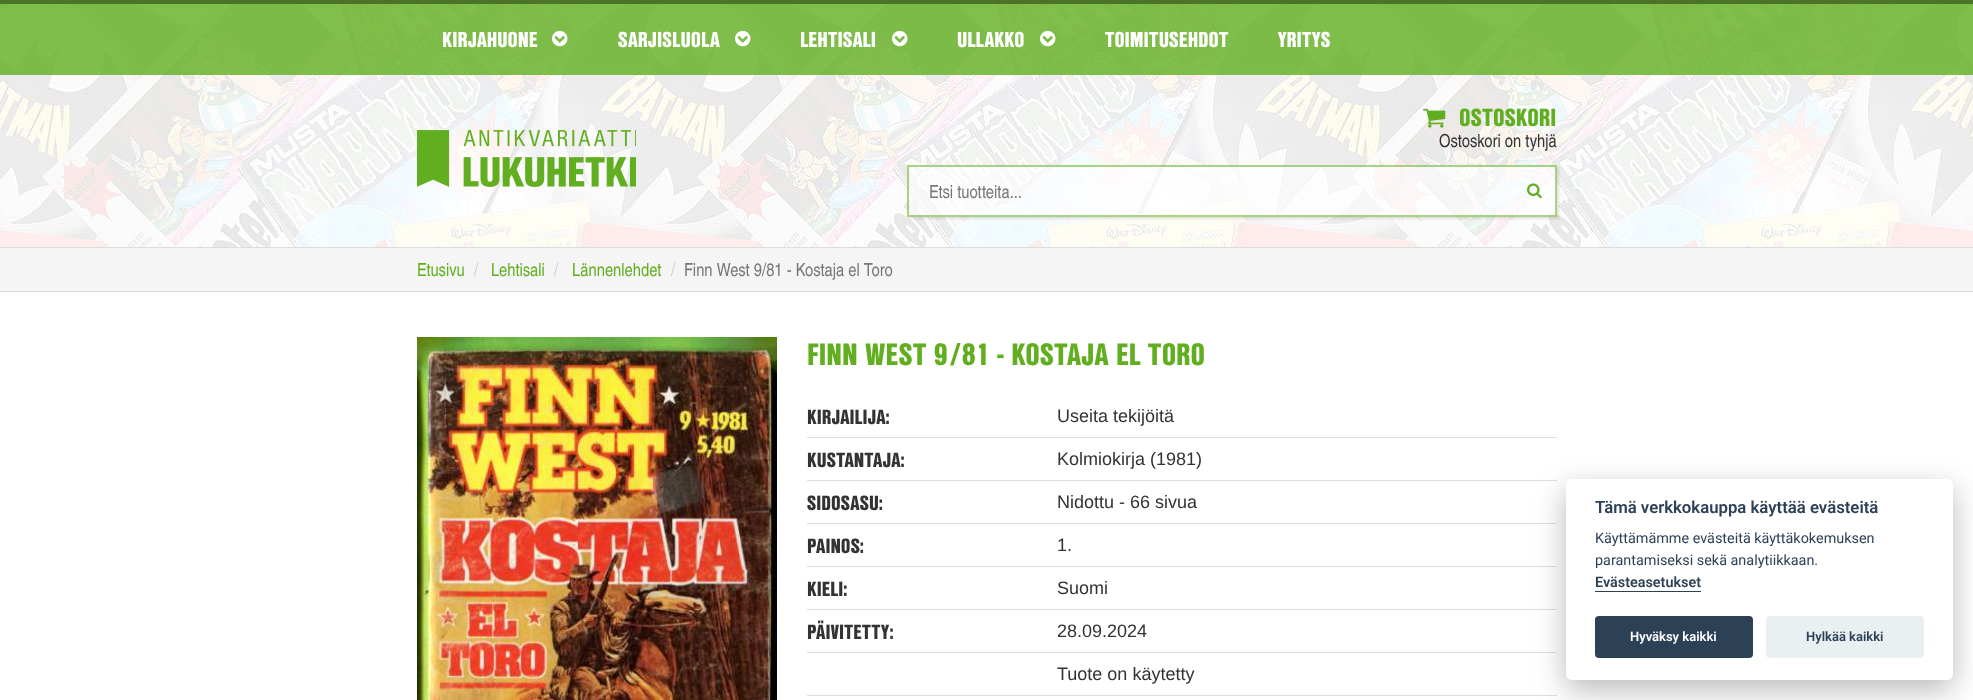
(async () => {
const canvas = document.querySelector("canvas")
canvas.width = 1973
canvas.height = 700
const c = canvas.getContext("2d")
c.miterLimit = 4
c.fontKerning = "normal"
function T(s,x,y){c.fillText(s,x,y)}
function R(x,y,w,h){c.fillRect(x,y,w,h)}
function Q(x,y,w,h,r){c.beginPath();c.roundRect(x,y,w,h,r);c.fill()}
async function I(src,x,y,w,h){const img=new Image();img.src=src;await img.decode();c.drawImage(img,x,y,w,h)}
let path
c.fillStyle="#fff"
R(0,0,1973,700)
await I("1.png",0,0,1973,247)
c.fillStyle="#61af20cc"
R(0,0,1973,75)
c.fillStyle="#3f6221cc"
R(0,0,1973,4)
c.font="900 21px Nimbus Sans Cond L"
c.fillStyle="#fff"
T("KIRJAHUONE",442,47)
await I("2.png",552,30,16,17)
T("SARJISLUOLA",618,47)
await I("3.png",735,30,16,17)
T("LEHTISALI",800,47)
await I("4.png",892,30,16,17)
T("ULLAKKO",957,47)
await I("5.png",1040,30,16,17)
T("TOIMITUSEHDOT",1105,47)
T("YRITYS",1278,47)
await I("6.png",417,130,219,57)
await I("7.png",1423,108,23,20)
c.font="900 24px Nimbus Sans Cond L"
c.fillStyle="#61af20"
T("OSTOSKORI",1459,126)
c.font="18px Nimbus Sans Cond L"
c.fillStyle="#333"
T("Ostoskori on tyhjä",1439,147)
c.save()
path = new Path2D("M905 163h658v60h-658zm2 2h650v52h-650z")
c.clip(path,"evenodd")
c.fillStyle="#0000001a"
c.filter="blur(1px)"
c.beginPath()
c.rect(909,167,650,52)
c.fill()
c.filter="none"
c.restore()
c.fillStyle="#ffffff99"
R(907,165,650,52)
c.strokeStyle="#61af208c"
c.lineWidth=2
c.strokeRect(908,166,648,50)
c.fillStyle="#777"
T("Etsi tuotteita...",929,198)
await I("8.png",1527,183,15,16)
c.fillStyle="#f5f5f5"
R(0,248,1973,43)
c.fillStyle="#ddd"
R(0,247,1973,1)
R(0,291,1973,1)
c.fillStyle="#61af20"
T("Etusivu",417,276)
c.fillStyle="#ccc"
T("/",474,276)
c.fillStyle="#61af20"
T("Lehtisali",491,276)
c.fillStyle="#ccc"
T("/",554,276)
c.fillStyle="#61af20"
T("Lännenlehdet",572,276)
c.fillStyle="#ccc"
T("/",671,276)
c.fillStyle="#777"
T("Finn West 9/81 - Kostaja el Toro",684,276)
await I("9.png",417,337,360,363)
c.font="900 30px Nimbus Sans Cond L"
c.fillStyle="#61af20"
T("FINN WEST 9/81 - KOSTAJA EL TORO",807,365)
c.fillStyle="#ddd"
R(807,437,750,1)
c.font="900 20px Nimbus Sans Cond L"
c.fillStyle="#333"
T("KIRJAILIJA:",807,424)
c.font="18px Liberation Sans"
T("Useita tekijöitä",1057,422)
c.fillStyle="#ddd"
R(807,480,750,1)
c.font="900 20px Nimbus Sans Cond L"
c.fillStyle="#333"
T("KUSTANTAJA:",807,467)
c.font="18px Liberation Sans"
T("Kolmiokirja (1981)",1057,465)
c.fillStyle="#ddd"
R(807,523,750,1)
c.font="900 20px Nimbus Sans Cond L"
c.fillStyle="#333"
T("SIDOSASU:",807,510)
c.font="18px Liberation Sans"
T("Nidottu - 66 sivua",1057,508)
c.fillStyle="#ddd"
R(807,566,750,1)
c.font="900 20px Nimbus Sans Cond L"
c.fillStyle="#333"
T("PAINOS:",807,553)
c.font="18px Liberation Sans"
T("1.",1057,551)
c.fillStyle="#ddd"
R(807,609,750,1)
c.font="900 20px Nimbus Sans Cond L"
c.fillStyle="#333"
T("KIELI:",807,596)
c.font="18px Liberation Sans"
T("Suomi",1057,594)
c.fillStyle="#ddd"
R(807,652,750,1)
c.font="900 20px Nimbus Sans Cond L"
c.fillStyle="#333"
T("PÄIVITETTY:",807,639)
c.font="18px Liberation Sans"
T("28.09.2024",1057,637)
c.fillStyle="#ddd"
R(807,695,750,1)
c.fillStyle="#333"
T("Tuote on käytetty",1057,680)
c.fillStyle="#02020347"
c.filter="blur(15px)"
c.beginPath()
c.roundRect(1566,489,387,201,6)
c.fill()
c.filter="none"
c.fillStyle="#fff"
Q(1566,479,387,201,6)
c.font="600 16.75px Roboto"
c.fillStyle="#2d4156"
T("Tämä verkkokauppa käyttää evästeitä",1595,513)
c.font="14.4px Roboto"
T("Käyttämämme evästeitä käyttäkokemuksen",1595,543)
T("parantamiseksi sekä analytiikkaan.",1595,565)
c.font="600 14.4px Roboto"
T("Evästeasetukset",1595,587)
R(1595,591,106,1)
Q(1595,616,158,42,4)
c.font="600 13px Roboto"
c.fillStyle="#fff"
T("Hyväksy kaikki",1630,641)
c.fillStyle="#eaeff2"
Q(1766,616,158,42,4)
c.fillStyle="#2d4156"
T("Hylkää kaikki",1806,641)
})()
